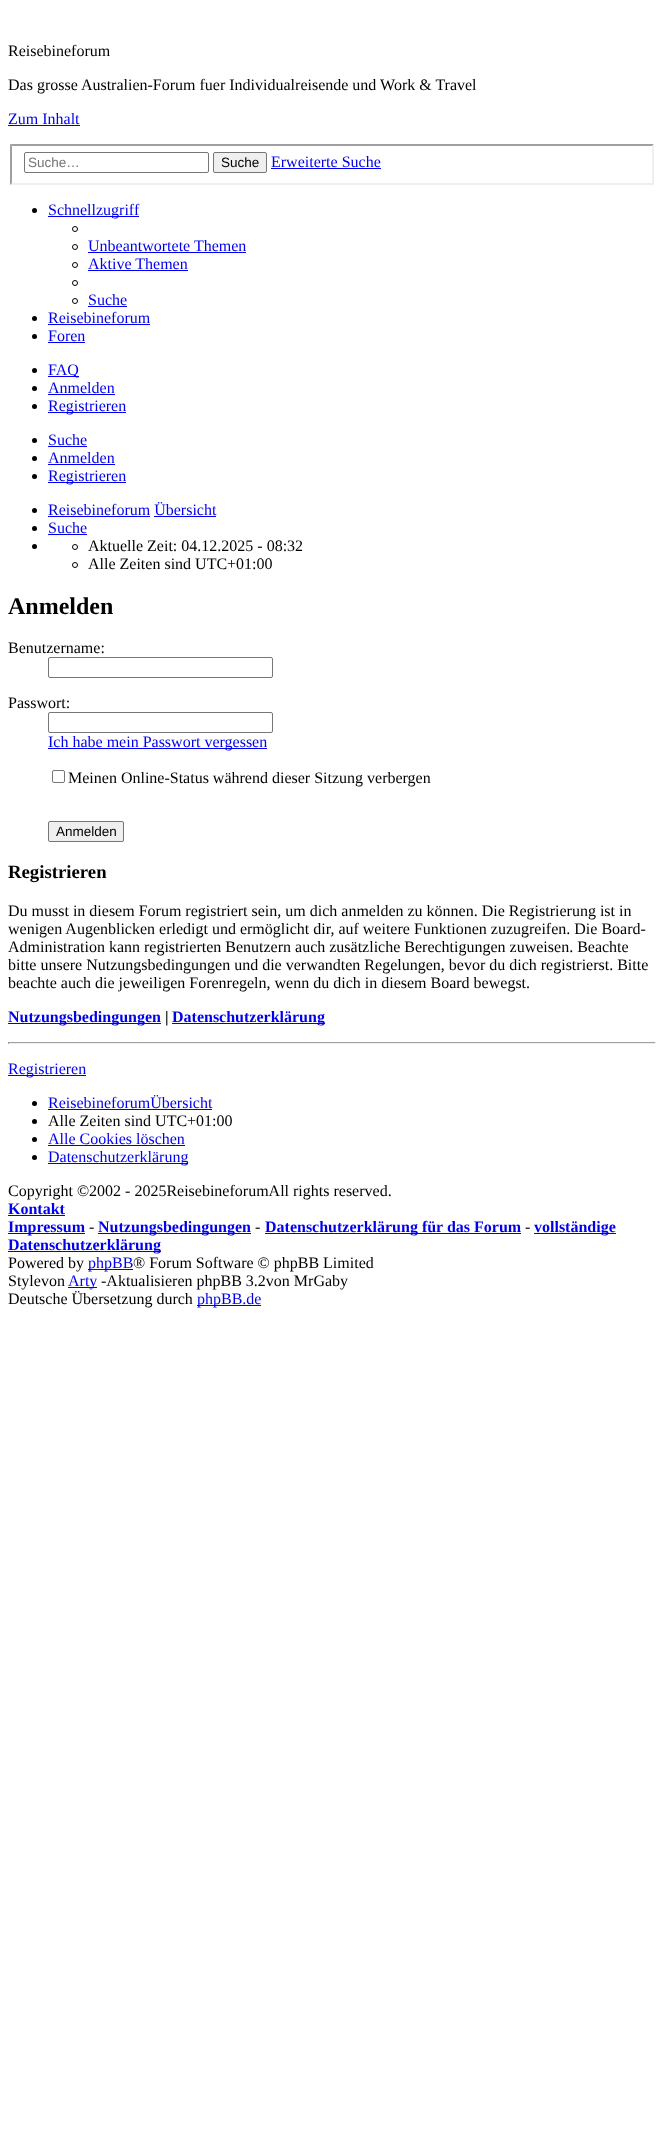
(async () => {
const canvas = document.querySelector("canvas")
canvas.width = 664
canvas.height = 2145
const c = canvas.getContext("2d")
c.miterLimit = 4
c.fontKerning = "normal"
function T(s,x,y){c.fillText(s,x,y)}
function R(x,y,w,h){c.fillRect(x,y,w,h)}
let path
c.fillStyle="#fff"
R(0,0,664,2145)
c.font="16px Liberation Serif"
c.fillStyle="#000"
T("Reisebineforum",8,56)
T("Das grosse Australien-Forum fuer Individualreisende und Work & Travel",8,90)
c.fillStyle="#00e"
T("Zum Inhalt",8,124)
R(8,125,72,1)
c.fillStyle="#9f9f9f"
path = new Path2D("M10 144h644l-2 2h-640z")
c.fill(path)
c.fillStyle="#efefef"
path = new Path2D("M654 144v41l-2-2v-37z")
c.fill(path)
path = new Path2D("M654 185h-644l2-2h640z")
c.fill(path)
c.fillStyle="#9f9f9f"
path = new Path2D("M10 185v-41l2 2v37z")
c.fill(path)
c.beginPath()
c.roundRect(24.5,152.5,184,20,1.5)
c.strokeStyle="#767676"
c.stroke()
c.font="13.5px Liberation Sans"
c.fillStyle="#757575"
T("Suche…",28,167)
c.fillStyle="#efefef"
c.beginPath()
c.roundRect(213.5,152.5,53,20,1.5)
c.fill()
c.stroke()
c.fillStyle="#000"
T("Suche",221,167)
c.font="16px Liberation Serif"
c.fillStyle="#00e"
T("Erweiterte Suche",271,167)
R(271,168,110,1)
c.fillStyle="#000"
c.beginPath()
c.arc(34.5,210.5,2.5,0,7)
c.fill()
c.fillStyle="#00e"
R(48,216,91,1)
T("Schnellzugriff",48,215)
c.beginPath()
c.arc(75,229,2.5,0,7)
c.strokeStyle="#000"
c.stroke()
c.beginPath()
c.arc(75,247,2.5,0,7)
c.stroke()
T("Unbeantwortete Themen",88,251)
R(88,252,158,1)
c.beginPath()
c.arc(75,265,2.5,0,7)
c.stroke()
T("Aktive Themen",88,269)
R(88,270,100,1)
c.beginPath()
c.arc(75,283,2.5,0,7)
c.stroke()
c.beginPath()
c.arc(75,301,2.5,0,7)
c.stroke()
T("Suche",88,305)
R(88,306,39,1)
c.fillStyle="#000"
c.beginPath()
c.arc(34.5,318.5,2.5,0,7)
c.fill()
c.fillStyle="#00e"
T("Reisebineforum",48,323)
R(48,324,102,1)
c.fillStyle="#000"
c.beginPath()
c.arc(34.5,336.5,2.5,0,7)
c.fill()
c.fillStyle="#00e"
T("Foren",48,341)
R(48,342,37,1)
c.fillStyle="#000"
c.beginPath()
c.arc(34.5,370.5,2.5,0,7)
c.fill()
c.fillStyle="#00e"
R(48,376,31,1)
T("FAQ",48,375)
c.fillStyle="#000"
c.beginPath()
c.arc(34.5,388.5,2.5,0,7)
c.fill()
c.fillStyle="#00e"
T("Anmelden",48,393)
R(48,394,67,1)
c.fillStyle="#000"
c.beginPath()
c.arc(34.5,406.5,2.5,0,7)
c.fill()
c.fillStyle="#00e"
R(48,412,78,1)
T("Registrieren",48,411)
c.fillStyle="#000"
c.beginPath()
c.arc(34.5,440.5,2.5,0,7)
c.fill()
c.fillStyle="#00e"
T("Suche",48,445)
R(48,446,39,1)
c.fillStyle="#000"
c.beginPath()
c.arc(34.5,458.5,2.5,0,7)
c.fill()
c.fillStyle="#00e"
T("Anmelden",48,463)
R(48,464,67,1)
c.fillStyle="#000"
c.beginPath()
c.arc(34.5,476.5,2.5,0,7)
c.fill()
c.fillStyle="#00e"
R(48,482,78,1)
T("Registrieren",48,481)
c.fillStyle="#000"
c.beginPath()
c.arc(34.5,510.5,2.5,0,7)
c.fill()
c.fillStyle="#00e"
T("Reisebineforum Übersicht",48,515)
R(48,516,102,1)
R(154,516,62,1)
c.fillStyle="#000"
c.beginPath()
c.arc(34.5,528.5,2.5,0,7)
c.fill()
c.fillStyle="#00e"
T("Suche",48,533)
R(48,534,39,1)
c.fillStyle="#000"
c.beginPath()
c.arc(34.5,546.5,2.5,0,7)
c.fill()
c.beginPath()
c.arc(75,547,2.5,0,7)
c.stroke()
T("Aktuelle Zeit: 04.12.2025 - 08:32",88,551)
c.beginPath()
c.arc(75,565,2.5,0,7)
c.stroke()
T("Alle Zeiten sind UTC+01:00",88,569)
c.font="bold 24px Liberation Serif"
T("Anmelden",8,614)
c.font="16px Liberation Serif"
T("Benutzername:",8,653)
c.beginPath()
c.roundRect(48.5,657.5,224,20,1.5)
c.strokeStyle="#767676"
c.stroke()
T("Passwort:",8,708)
c.beginPath()
c.roundRect(48.5,712.5,224,20,1.5)
c.stroke()
c.fillStyle="#00e"
R(48,748,219,1)
T("Ich habe mein Passwort vergessen",48,747)
c.beginPath()
c.roundRect(52.5,770.5,12,12,1.5)
c.stroke()
c.fillStyle="#000"
T("Meinen Online-Status während dieser Sitzung verbergen",68,783)
c.fillStyle="#efefef"
c.beginPath()
c.roundRect(48.5,821.5,75,20,1.5)
c.fill()
c.stroke()
c.font="13.5px Liberation Sans"
c.fillStyle="#000"
T("Anmelden",56,836)
c.font="bold 18.75px Liberation Serif"
T("Registrieren",8,878)
c.font="16px Liberation Serif"
T("Du musst in diesem Forum registriert sein, um dich anmelden zu können. Die Registrierung ist in",8,916)
T("wenigen Augenblicken erledigt und ermöglicht dir, auf weitere Funktionen zuzugreifen. Die Board-",8,934)
T("Administration kann registrierten Benutzern auch zusätzliche Berechtigungen zuweisen. Beachte",8,952)
T("bitte unsere Nutzungsbedingungen und die verwandten Regelungen, bevor du dich registrierst. Bitte",8,970)
T("beachte auch die jeweiligen Forenregeln, wenn du dich in diesem Board bewegst.",8,988)
c.fillStyle="#00e"
R(8,1023,153,1)
c.font="bold 16px Liberation Serif"
T("Nutzungsbedingungen",8,1022)
c.fillStyle="#000"
T("|",165,1022)
c.fillStyle="#00e"
R(172,1023,153,1)
T("Datenschutzerklärung",172,1022)
c.fillStyle="#9f9f9f"
R(8,1042,648,1)
c.fillStyle="#eee"
R(655,1042,1,2)
R(8,1043,648,1)
c.fillStyle="#9f9f9f"
R(8,1042,1,2)
c.fillStyle="#00e"
R(8,1075,78,1)
c.font="16px Liberation Serif"
T("Registrieren",8,1074)
c.fillStyle="#000"
c.beginPath()
c.arc(34.5,1103.5,2.5,0,7)
c.fill()
c.fillStyle="#00e"
T("ReisebineforumÜbersicht",48,1108)
R(48,1109,164,1)
c.fillStyle="#000"
c.beginPath()
c.arc(34.5,1121.5,2.5,0,7)
c.fill()
T("Alle Zeiten sind UTC+01:00",48,1126)
c.beginPath()
c.arc(34.5,1139.5,2.5,0,7)
c.fill()
c.fillStyle="#00e"
T("Alle Cookies löschen",48,1144)
R(48,1145,137,1)
c.fillStyle="#000"
c.beginPath()
c.arc(34.5,1157.5,2.5,0,7)
c.fill()
c.fillStyle="#00e"
R(48,1163,140,1)
T("Datenschutzerklärung",48,1162)
c.fillStyle="#000"
T("Copyright ©2002 - 2025ReisebineforumAll rights reserved.",8,1196)
c.font="bold 16px Liberation Serif"
c.fillStyle="#00e"
T("Kontakt",8,1214)
R(8,1215,57,1)
R(8,1233,77,1)
T("Impressum",8,1232)
c.font="16px Liberation Serif"
c.fillStyle="#000"
T("-",89,1232)
c.fillStyle="#00e"
R(98,1233,153,1)
c.font="bold 16px Liberation Serif"
T("Nutzungsbedingungen",98,1232)
c.font="16px Liberation Serif"
c.fillStyle="#000"
T("-",255,1232)
c.fillStyle="#00e"
R(265,1233,256,1)
c.font="bold 16px Liberation Serif"
T("Datenschutzerklärung für das Forum",265,1232)
c.font="16px Liberation Serif"
c.fillStyle="#000"
T("-",525,1232)
c.fillStyle="#00e"
R(534,1233,82,1)
c.font="bold 16px Liberation Serif"
T("vollständige",534,1232)
R(8,1251,153,1)
T("Datenschutzerklärung",8,1250)
c.font="16px Liberation Serif"
c.fillStyle="#000"
T("Powered by",8,1268)
c.fillStyle="#00e"
R(88,1269,45,1)
T("phpBB",88,1268)
c.fillStyle="#000"
T("® Forum Software © phpBB Limited",133,1268)
T("Stylevon",8,1286)
c.fillStyle="#00e"
R(68,1287,29,1)
T("Arty",68,1286)
c.fillStyle="#000"
T("-Aktualisieren phpBB 3.2von MrGaby",101,1286)
T("Deutsche Übersetzung durch",8,1304)
c.fillStyle="#00e"
R(197,1305,64,1)
T("phpBB.de",197,1304)
})()
